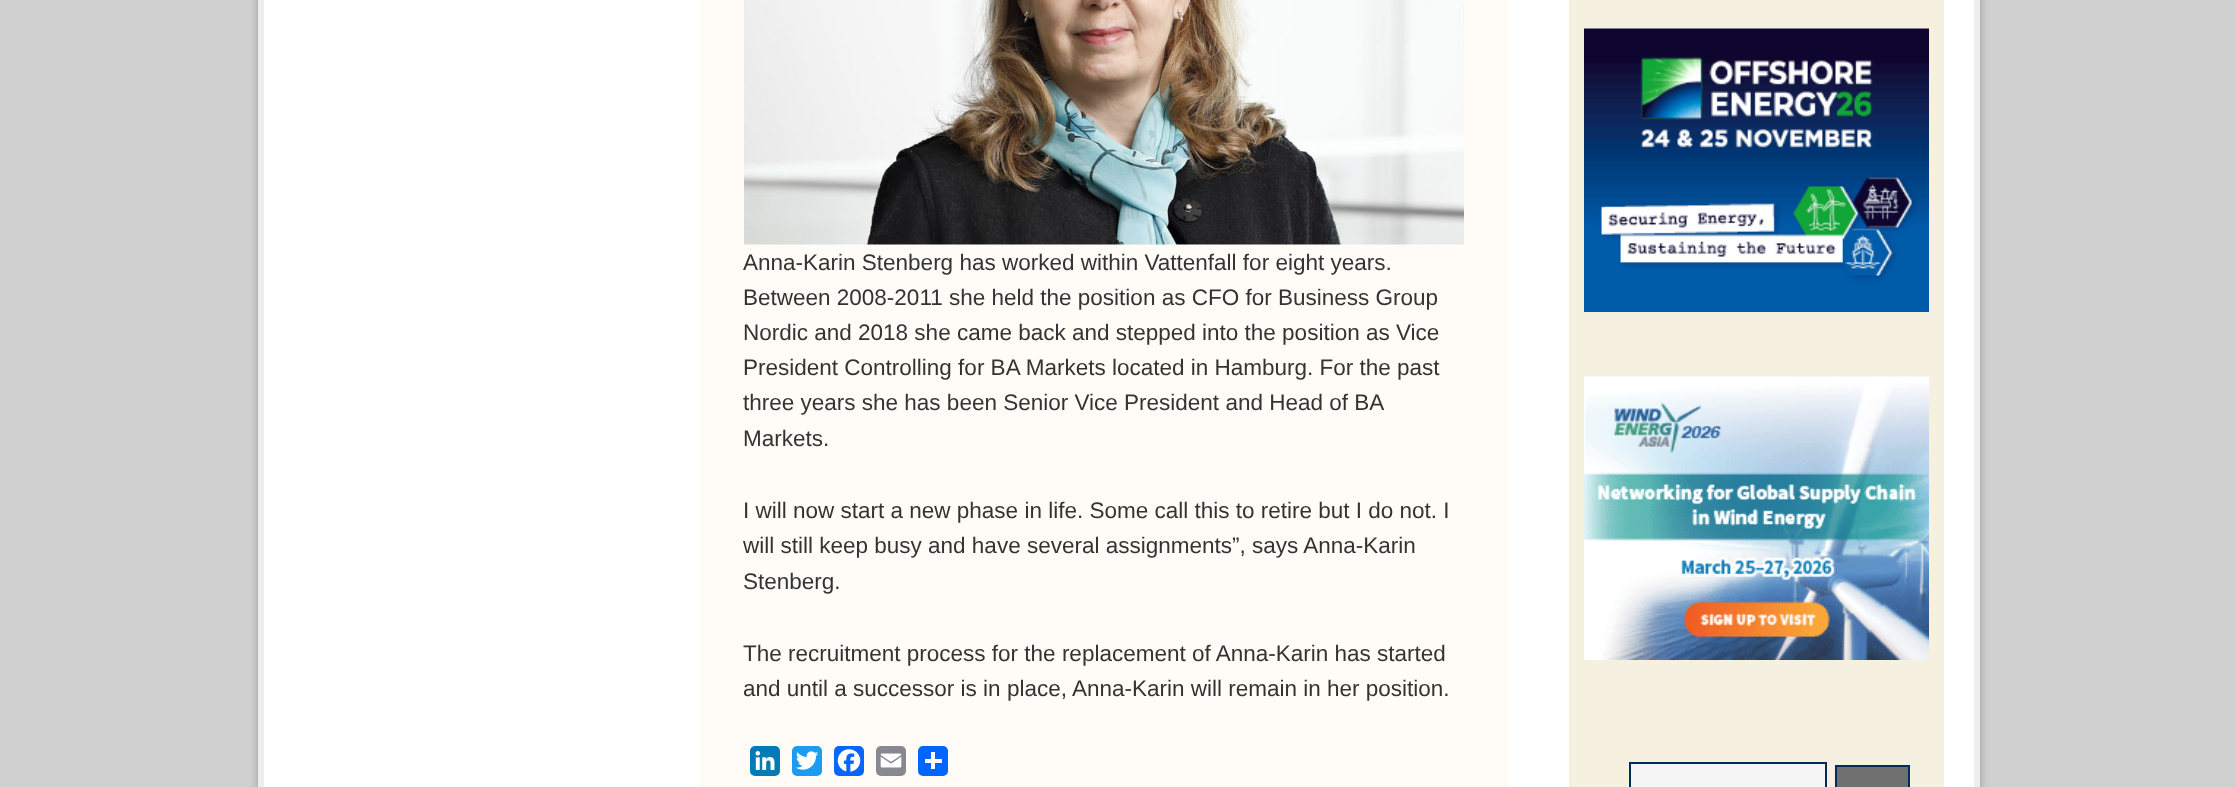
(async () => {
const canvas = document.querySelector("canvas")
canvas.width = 2236
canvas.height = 787
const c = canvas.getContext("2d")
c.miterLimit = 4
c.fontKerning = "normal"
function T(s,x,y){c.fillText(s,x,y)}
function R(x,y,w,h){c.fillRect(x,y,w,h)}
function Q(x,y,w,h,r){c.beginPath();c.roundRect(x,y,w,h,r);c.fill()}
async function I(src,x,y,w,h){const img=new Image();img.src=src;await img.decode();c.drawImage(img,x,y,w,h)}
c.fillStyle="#d0d0d0"
R(0,0,2236,787)
c.fillStyle="#999"
c.filter="blur(4px)"
c.beginPath()
c.rect(258,-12,1722,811)
c.fill()
c.filter="none"
c.fillStyle="#fff"
c.beginPath()
c.rect(261,-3,1716,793)
c.fill()
c.strokeStyle="#eee"
c.lineWidth=6
c.stroke()
c.fillStyle="#fffcf7"
R(699,0,810,787)
await I("1.png",744,0,720,245)
c.font="22.5px Liberation Sans"
c.fillStyle="#333"
T("Anna-Karin Stenberg has worked within Vattenfall for eight years.",743,270)
T("Between 2008-2011 she held the position as CFO for Business Group",743,305)
T("Nordic and 2018 she came back and stepped into the position as Vice",743,340)
T("President Controlling for BA Markets located in Hamburg. For the past",743,375)
T("three years she has been Senior Vice President and Head of BA",743,410)
T("Markets.",743,446)
T("I will now start a new phase in life. Some call this to retire but I do not. I",743,518)
T("will still keep busy and have several assignments”, says Anna-Karin",743,553)
T("Stenberg.",743,589)
T("The recruitment process for the replacement of Anna-Karin has started",743,661)
T("and until a successor is in place, Anna-Karin will remain in her position.",743,696)
c.fillStyle="#007bb5"
Q(750,746,30,30,5)
await I("2.png",755,751,20,19)
c.fillStyle="#1d9bf0"
Q(792,746,30,30,5)
await I("3.png",796,751,23,19)
c.fillStyle="#0866ff"
Q(834,746,30,30,5)
await I("4.png",837,749,24,23)
c.fillStyle="#888990"
Q(876,746,30,30,5)
await I("5.png",880,753,22,15)
c.fillStyle="#0166ff"
Q(918,746,30,30,5)
c.fillStyle="#fff"
R(931,752,4,17)
R(925,759,17,4)
c.fillStyle="#f6f0e1"
R(1569,0,375,787)
await I("6.png",1584,28,345,284)
await I("7.png",1584,376,345,284)
c.fillStyle="#f5f5f5"
c.beginPath()
c.rect(1630,763,196,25)
c.fill()
c.strokeStyle="#002c5c"
c.lineWidth=2
c.stroke()
c.fillStyle="#707070"
c.beginPath()
c.rect(1836,766,73,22)
c.fill()
c.stroke()
})()
